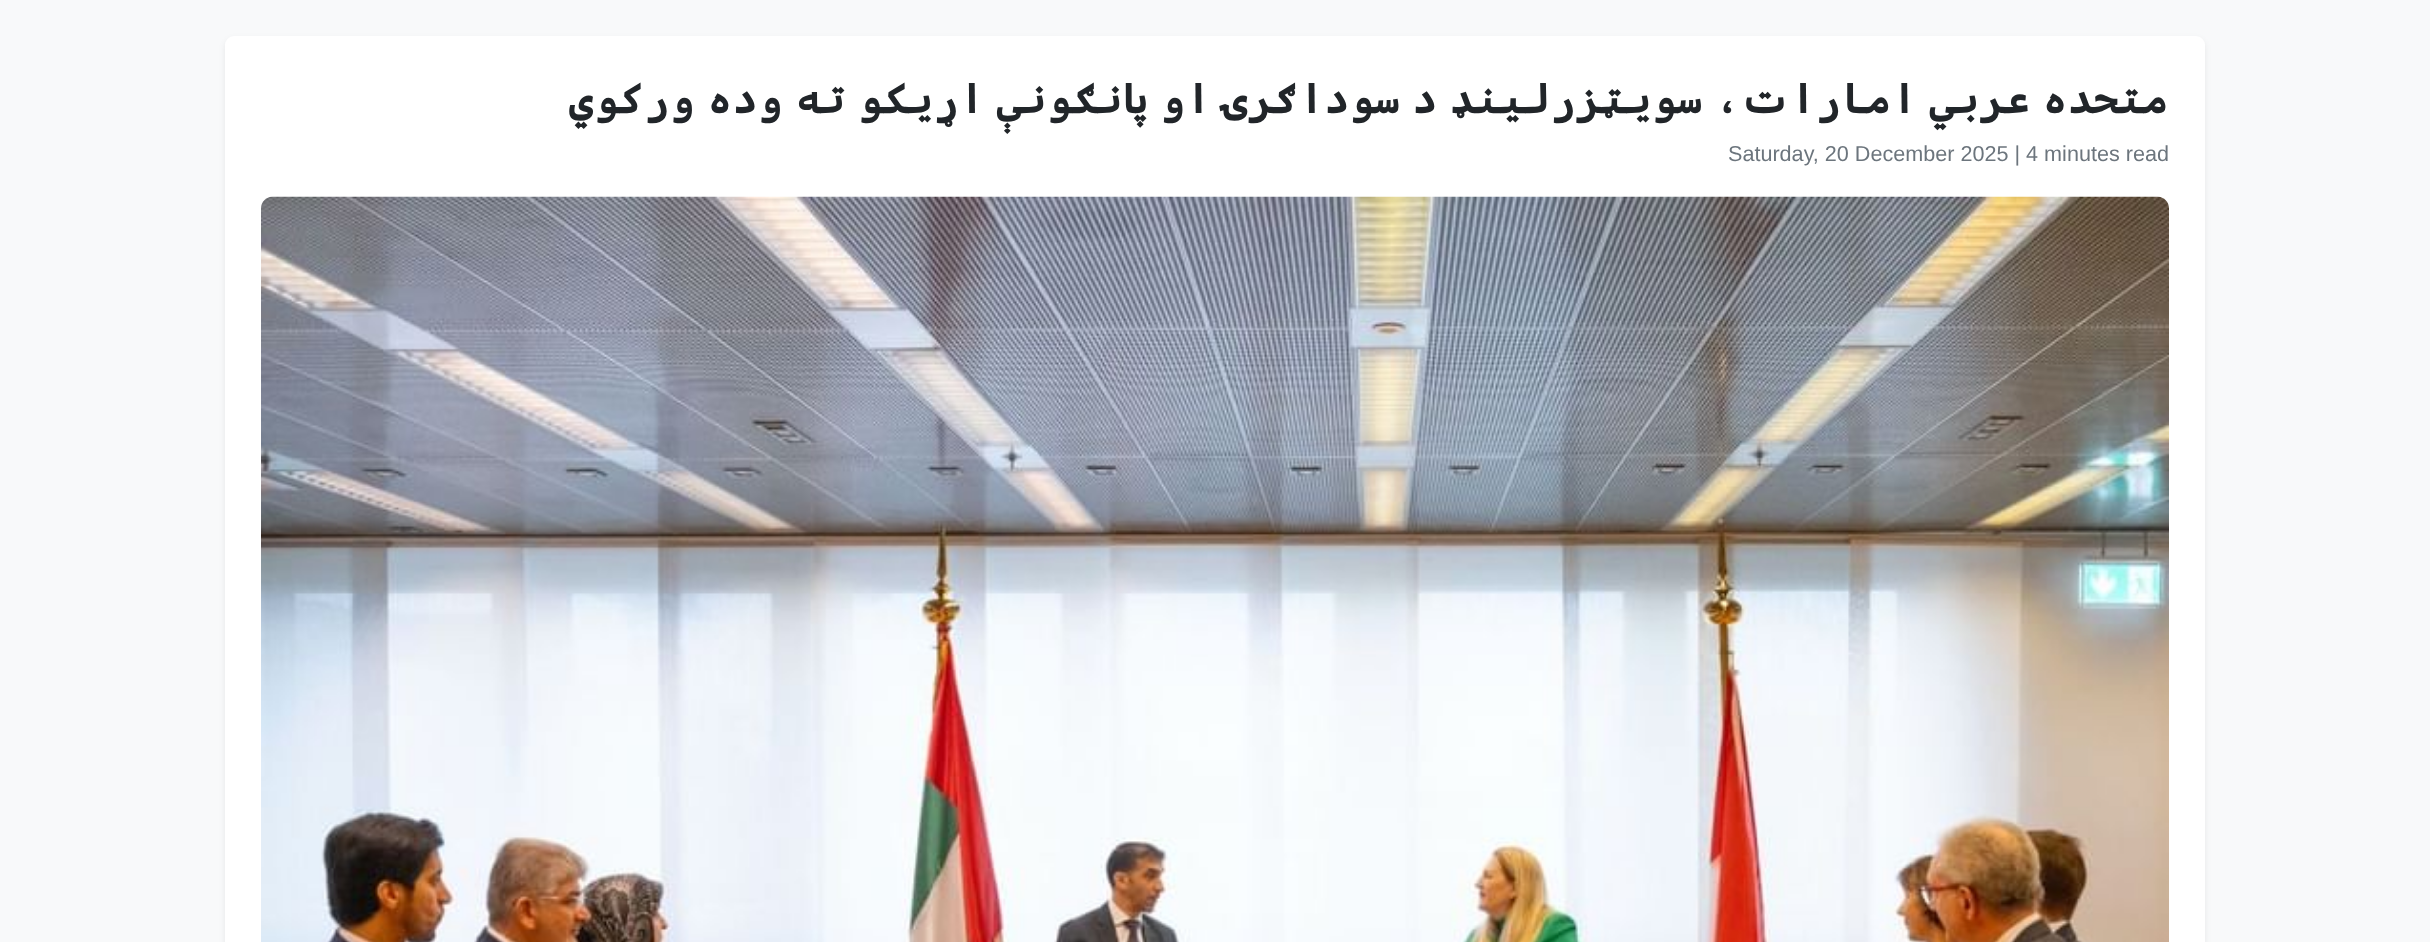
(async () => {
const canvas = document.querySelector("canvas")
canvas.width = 2430
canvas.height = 942
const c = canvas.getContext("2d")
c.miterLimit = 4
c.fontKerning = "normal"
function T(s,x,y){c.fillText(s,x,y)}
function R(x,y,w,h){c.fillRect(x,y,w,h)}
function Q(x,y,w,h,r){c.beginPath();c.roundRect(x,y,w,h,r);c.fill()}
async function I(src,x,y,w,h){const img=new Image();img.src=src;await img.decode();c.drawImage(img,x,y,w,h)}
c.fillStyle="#f8f9fa"
R(0,0,2430,942)
c.fillStyle="#00000012"
c.filter="blur(3px)"
c.beginPath()
c.roundRect(225,39,1980,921,9)
c.fill()
c.filter="none"
c.fillStyle="#fff"
Q(225,36,1980,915,9)
c.wordSpacing="-13.25px"
c.direction="rtl"
c.font="bold 43.2px Cascadia Code"
c.fillStyle="#212529"
T("متحده عربي امارات، سویټزرلینډ د سوداګرۍ او پانګونې اړیکو ته وده ورکوي",2169,113)
c.wordSpacing="0px"
c.direction="ltr"
c.font="21.6px Liberation Sans"
c.fillStyle="#6c757d"
T("Saturday, 20 December 2025 | 4 minutes read",1728,161)
await I("1.png",261,196,1908,746)
})()
